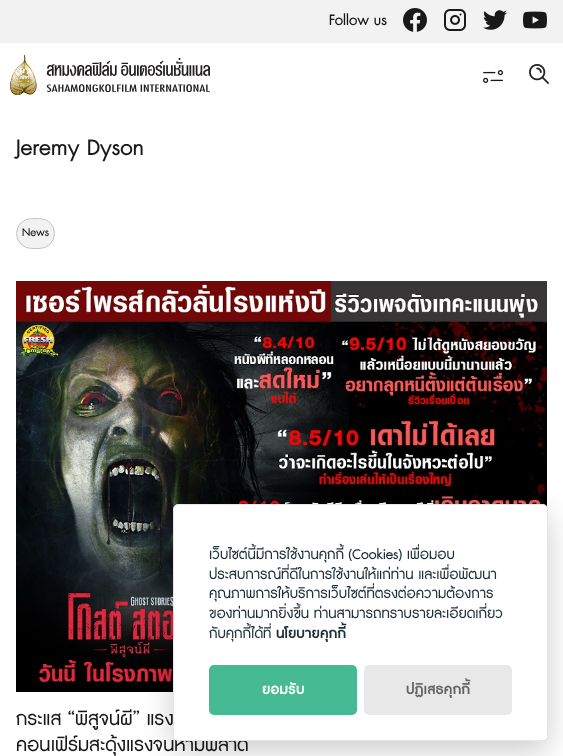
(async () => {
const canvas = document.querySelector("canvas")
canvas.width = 563
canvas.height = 756
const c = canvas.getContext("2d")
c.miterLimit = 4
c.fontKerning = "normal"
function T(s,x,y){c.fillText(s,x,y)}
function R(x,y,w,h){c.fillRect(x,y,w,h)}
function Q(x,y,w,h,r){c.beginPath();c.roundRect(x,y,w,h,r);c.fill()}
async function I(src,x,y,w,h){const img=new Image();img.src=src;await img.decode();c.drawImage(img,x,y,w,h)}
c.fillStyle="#fff"
R(0,0,563,756)
c.fillStyle="#f2f2f2"
R(0,0,563,43)
c.font="16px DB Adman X"
c.fillStyle="#191919"
T("Follow us",329,25)
await I("1.png",403,8,24,24)
await I("2.png",444,9,22,22)
await I("3.png",483,10,24,20)
await I("4.png",523,11,24,18)
await I("5.png",10,54,200,41)
await I("6.png",483,70,20,13)
await I("7.png",529,64,20,20)
c.font="24px DB Adman X"
T("Jeremy Dyson",16,155)
c.fillStyle="#f2f2f2"
c.beginPath()
c.roundRect(16.5,218.5,38,30,15)
c.fill()
c.strokeStyle="#c4c4c4"
c.stroke()
c.font="12px DB Adman X"
c.fillStyle="#191919"
T("News",22,236)
await I("8.png",16,281,531,411)
c.font="20px DB Adman X"
T("กระแส “พิสูจน์ผี” แรง",16,725)
T("คอนเฟิร์มสะดุ้งแรงจนห้ามพลาด",16,751)
c.fillStyle="#02020333"
c.filter="blur(15px)"
c.beginPath()
c.roundRect(173,514,375,237,5)
c.fill()
c.filter="none"
c.fillStyle="#fff"
c.beginPath()
c.roundRect(173.5,504.5,374,236,4.5)
c.fill()
c.strokeStyle="#e6e6e6"
c.stroke()
c.font="15px DB Adman X"
c.fillStyle="#1d2e38"
T("เว็บไซต์นี้มีการใช้งานคุกกี้ (Cookies) เพื่อมอบ",209,559)
T("ประสบการณ์ที่ดีในการใช้งานให้แก่ท่าน และเพื่อพัฒนา",209,579)
T("คุณภาพการให้บริการเว็บไซต์ที่ตรงต่อความต้องการ",209,598)
T("ของท่านมากยิ่งขึ้น ท่านสามารถทราบรายละเอียดเกี่ยว",209,618)
T("กับคุกกี้ได้ที่",209,638)
c.font="bold 15px DB Adman X"
T("นโยบายคุกกี้",276,638)
c.fillStyle="#46ba92"
Q(209,665,148,50,5)
c.fillStyle="#fff"
T("ยอมรับ",262,694)
c.fillStyle="#e8e8e8"
Q(364,665,148,50,5)
c.fillStyle="#636363"
T("ปฏิเสธคุกกี้",406,694)
})()
